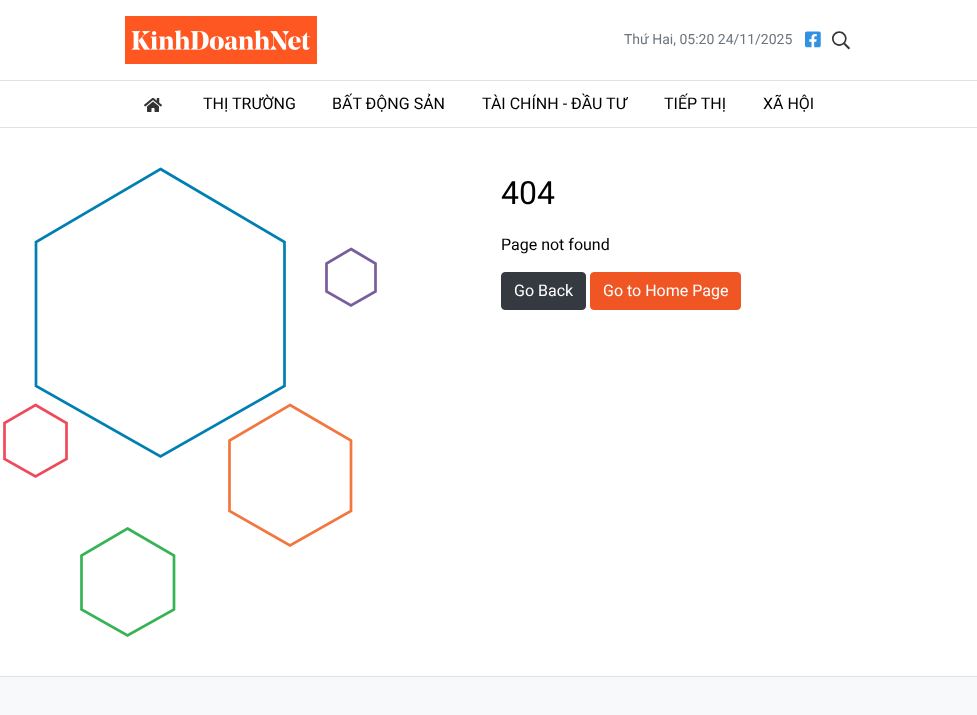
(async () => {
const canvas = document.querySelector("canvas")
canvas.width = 977
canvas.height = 715
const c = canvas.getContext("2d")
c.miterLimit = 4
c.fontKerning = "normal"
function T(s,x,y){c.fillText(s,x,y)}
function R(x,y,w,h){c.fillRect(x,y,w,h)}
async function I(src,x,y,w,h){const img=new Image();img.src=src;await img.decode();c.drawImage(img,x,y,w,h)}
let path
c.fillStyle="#fff"
R(0,0,977,715)
await I("1.png",125,16,192,48)
c.font="14px Roboto"
c.fillStyle="#6c757d"
T("Thứ Hai, 05:20 24/11/2025",624,44)
await I("2.png",805,31,16,17)
await I("3.png",832,31,18,19)
c.fillStyle="#dee2e6"
R(0,80,977,1)
R(0,127,977,1)
await I("4.png",144,98,18,14)
c.font="16px Roboto"
c.fillStyle="#000"
T("THỊ TRƯỜNG",203,109)
T("BẤT ĐỘNG SẢN",332,109)
T("TÀI CHÍNH - ĐẦU TƯ",482,109)
T("TIẾP THỊ",664,109)
T("XÃ HỘI",763,109)
path = new Path2D("M160.5 169l124 73v144l-124 70.5l-124.5-70.5v-144z")
c.strokeStyle="#007fb2"
c.lineWidth=2.7
c.stroke(path)
path = new Path2D("M351 249l24.5 14.5v28l-24.5 14l-24.5-14v-28z")
c.strokeStyle="#795d9c"
c.stroke(path)
path = new Path2D("M35.5 405l31 18v36l-31 17.5l-31-17.5v-36z")
c.strokeStyle="#ef4a5b"
c.stroke(path)
path = new Path2D("M290 405l61 35.5v70.5l-61 34.5l-60.5-34.5v-70.5z")
c.strokeStyle="#f2773f"
c.stroke(path)
path = new Path2D("M127.5 528.5l46.5 27v54l-46.5 26l-46-26v-54z")
c.strokeStyle="#36b455"
c.stroke(path)
c.font="32px Roboto"
T("404",501,204)
c.font="16px Roboto"
T("Page not found",501,250)
c.fillStyle="#343a40"
c.beginPath()
c.roundRect(501.5,272.5,84,37,3.5)
c.fill()
c.strokeStyle="#343a40"
c.lineWidth=1
c.stroke()
c.fillStyle="#fff"
T("Go Back",514,296)
c.fillStyle="#ef5623"
c.beginPath()
c.roundRect(590.5,272.5,150,37,3.5)
c.fill()
c.strokeStyle="#ef5623"
c.stroke()
c.fillStyle="#fff"
T("Go to Home Page",603,296)
c.fillStyle="#f8f9fa"
R(0,677,977,38)
c.fillStyle="#dee2e6"
R(0,676,977,1)
})()
